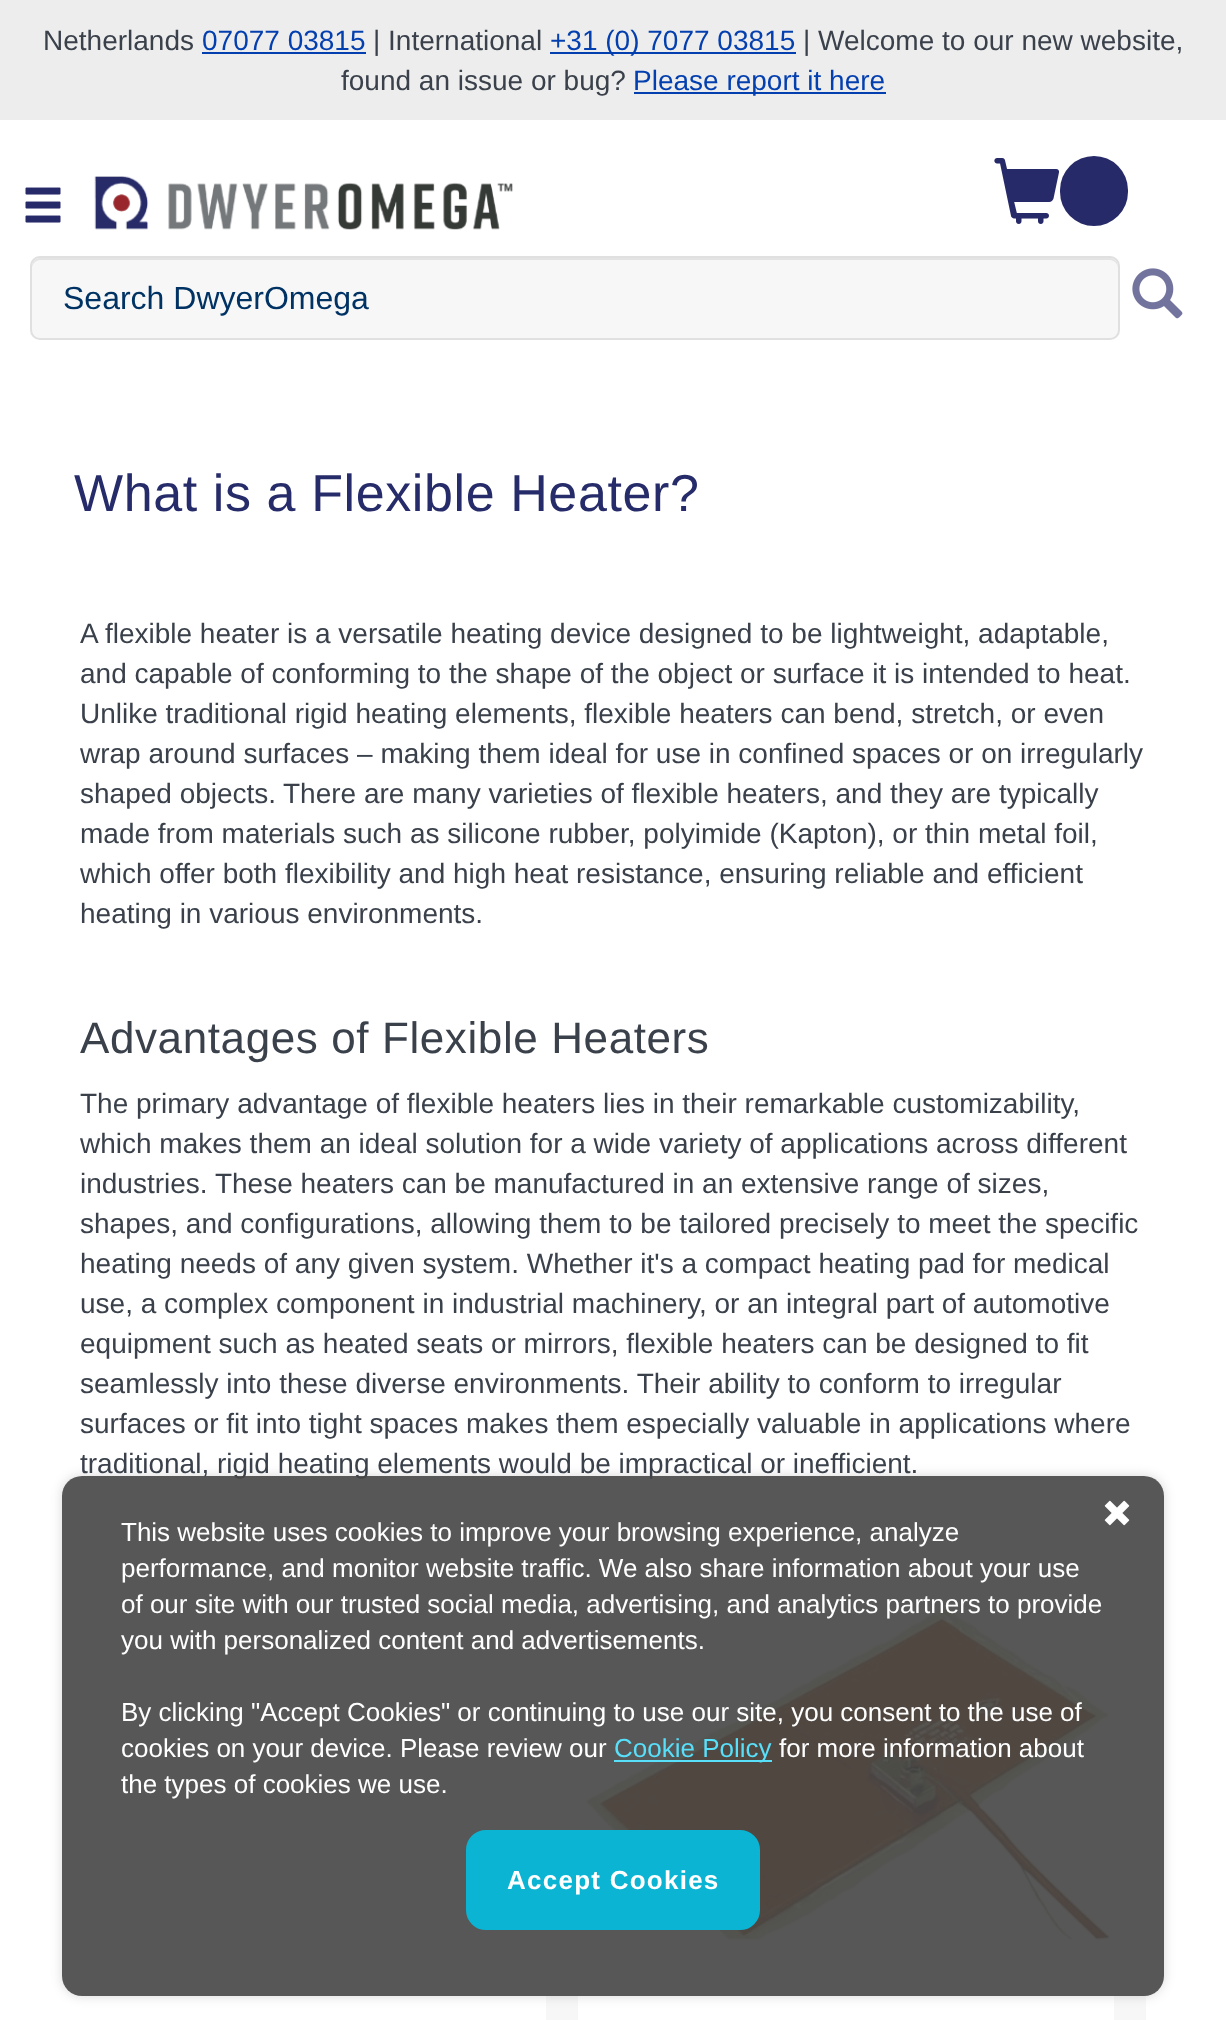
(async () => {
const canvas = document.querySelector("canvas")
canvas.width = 1226
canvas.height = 2020
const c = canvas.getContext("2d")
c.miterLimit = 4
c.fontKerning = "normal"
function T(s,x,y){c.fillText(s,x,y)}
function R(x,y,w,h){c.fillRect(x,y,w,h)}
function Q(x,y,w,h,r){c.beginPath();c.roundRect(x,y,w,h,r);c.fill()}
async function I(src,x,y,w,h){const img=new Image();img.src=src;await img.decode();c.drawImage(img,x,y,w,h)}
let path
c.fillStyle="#fff"
R(0,0,1226,2020)
c.fillStyle="#ededed"
R(0,0,1226,120)
c.font="28px Liberation Sans"
c.fillStyle="#3a414b"
T("Netherlands",43,50)
c.fillStyle="#043faf"
T("07077 03815",202,50)
R(202,52,164,2)
c.fillStyle="#3a414b"
T("| International",373,50)
c.fillStyle="#043faf"
R(550,52,246,2)
T("+31 (0) 7077 03815",550,50)
c.fillStyle="#3a414b"
T("| Welcome to our new website,",803,50)
T("found an issue or bug?",341,90)
c.fillStyle="#043faf"
R(634,92,252,2)
T("Please report it here",633,90)
await I("1.png",25,187,36,36)
await I("2.png",94,176,419,54)
await I("3.png",994,158,65,66)
c.fillStyle="#272a68"
Q(1060,156,68,70,34)
c.fillStyle="#f7f7f7"
Q(30,256,1090,84,10)
c.fillStyle="#e4e4e4"
path = new Path2D("M40 260h1070c4 0 8 4 8 8v-2c0-4-4-8-8-8h-1070c-4 0-8 4-8 8v2c0-4 4-8 8-8z")
c.fill(path)
c.beginPath()
c.roundRect(31,257,1088,82,9)
c.strokeStyle="#e0e0e0"
c.lineWidth=2
c.stroke()
c.font="32px Liberation Sans"
c.fillStyle="#003364"
T("Search DwyerOmega",63,309)
await I("4.png",1132,268,51,51)
c.fillStyle="#f7f7f7"
R(546,1482,600,538)
await I("6.png",578,1504,536,516)
c.save()
path = new Path2D("M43 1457h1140v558h-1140zm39 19h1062c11 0 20 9 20 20v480c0 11-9 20-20 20h-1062c-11 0-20-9-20-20v-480c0-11 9-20 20-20z")
c.clip(path,"evenodd")
c.fillStyle="#00000026"
c.filter="blur(6px)"
c.beginPath()
c.roundRect(62,1476,1102,520,20)
c.fill()
c.filter="none"
c.restore()
c.font="28px Liberation Sans"
c.fillStyle="#3a414b"
T("traditional, rigid heating elements would be impractical or inefficient.",80,1473)
c.fillStyle="#454545e6"
Q(62,1476,1102,520,20)
await I("5.png",1104,1500,26,26)
c.font="26px Liberation Sans"
c.fillStyle="#fff"
T("This website uses cookies to improve your browsing experience, analyze",121,1541)
T("performance, and monitor website traffic. We also share information about your use",121,1577)
T("of our site with our trusted social media, advertising, and analytics partners to provide",121,1613)
T("you with personalized content and advertisements.",121,1649)
T("By clicking \"Accept Cookies\" or continuing to use our site, you consent to the use of",121,1721)
T("cookies on your device. Please review our",121,1757)
c.fillStyle="#58dffa"
R(614,1760,158,2)
T("Cookie Policy",614,1757)
c.fillStyle="#fff"
T("for more information about",779,1757)
T("the types of cookies we use.",121,1793)
c.fillStyle="#0bb4d3"
c.beginPath()
c.roundRect(467,1831,292,98,19)
c.fill()
c.strokeStyle="#0bb4d3"
c.stroke()
c.letterSpacing="1.25px"
c.font="bold 26px Liberation Sans"
c.fillStyle="#fff"
T("Accept Cookies",507,1889)
c.letterSpacing="0.6px"
c.font="52px Liberation Sans"
c.fillStyle="#262b69"
T("What is a Flexible Heater?",74,511)
c.letterSpacing="0px"
c.font="28px Liberation Sans"
c.fillStyle="#3a414b"
T("A flexible heater is a versatile heating device designed to be lightweight, adaptable,",80,643)
T("and capable of conforming to the shape of the object or surface it is intended to heat.",80,683)
T("Unlike traditional rigid heating elements, flexible heaters can bend, stretch, or even",80,723)
T("wrap around surfaces – making them ideal for use in confined spaces or on irregularly",80,763)
T("shaped objects.",80,803)
T("There are many varieties of flexible heaters, and they are typically",283,803)
T("made from materials such as silicone rubber, polyimide (Kapton), or thin metal foil,",80,843)
T("which offer both flexibility and high heat resistance, ensuring reliable and efficient",80,883)
T("heating in various environments.",80,923)
c.letterSpacing="0.6px"
c.font="44px Liberation Sans"
T("Advantages of Flexible Heaters",80,1053)
c.letterSpacing="0px"
c.font="28px Liberation Sans"
T("The primary advantage of flexible heaters lies in their remarkable customizability,",80,1113)
T("which makes them an ideal solution for a wide variety of applications across different",80,1153)
T("industries. These heaters can be manufactured in an extensive range of sizes,",80,1193)
T("shapes, and configurations, allowing them to be tailored precisely to meet the specific",80,1233)
T("heating needs of any given system. Whether it's a compact heating pad for medical",80,1273)
T("use, a complex component in industrial machinery, or an integral part of automotive",80,1313)
T("equipment such as heated seats or mirrors, flexible heaters can be designed to fit",80,1353)
T("seamlessly into these diverse environments. Their ability to conform to irregular",80,1393)
T("surfaces or fit into tight spaces makes them especially valuable in applications where",80,1433)
})()
